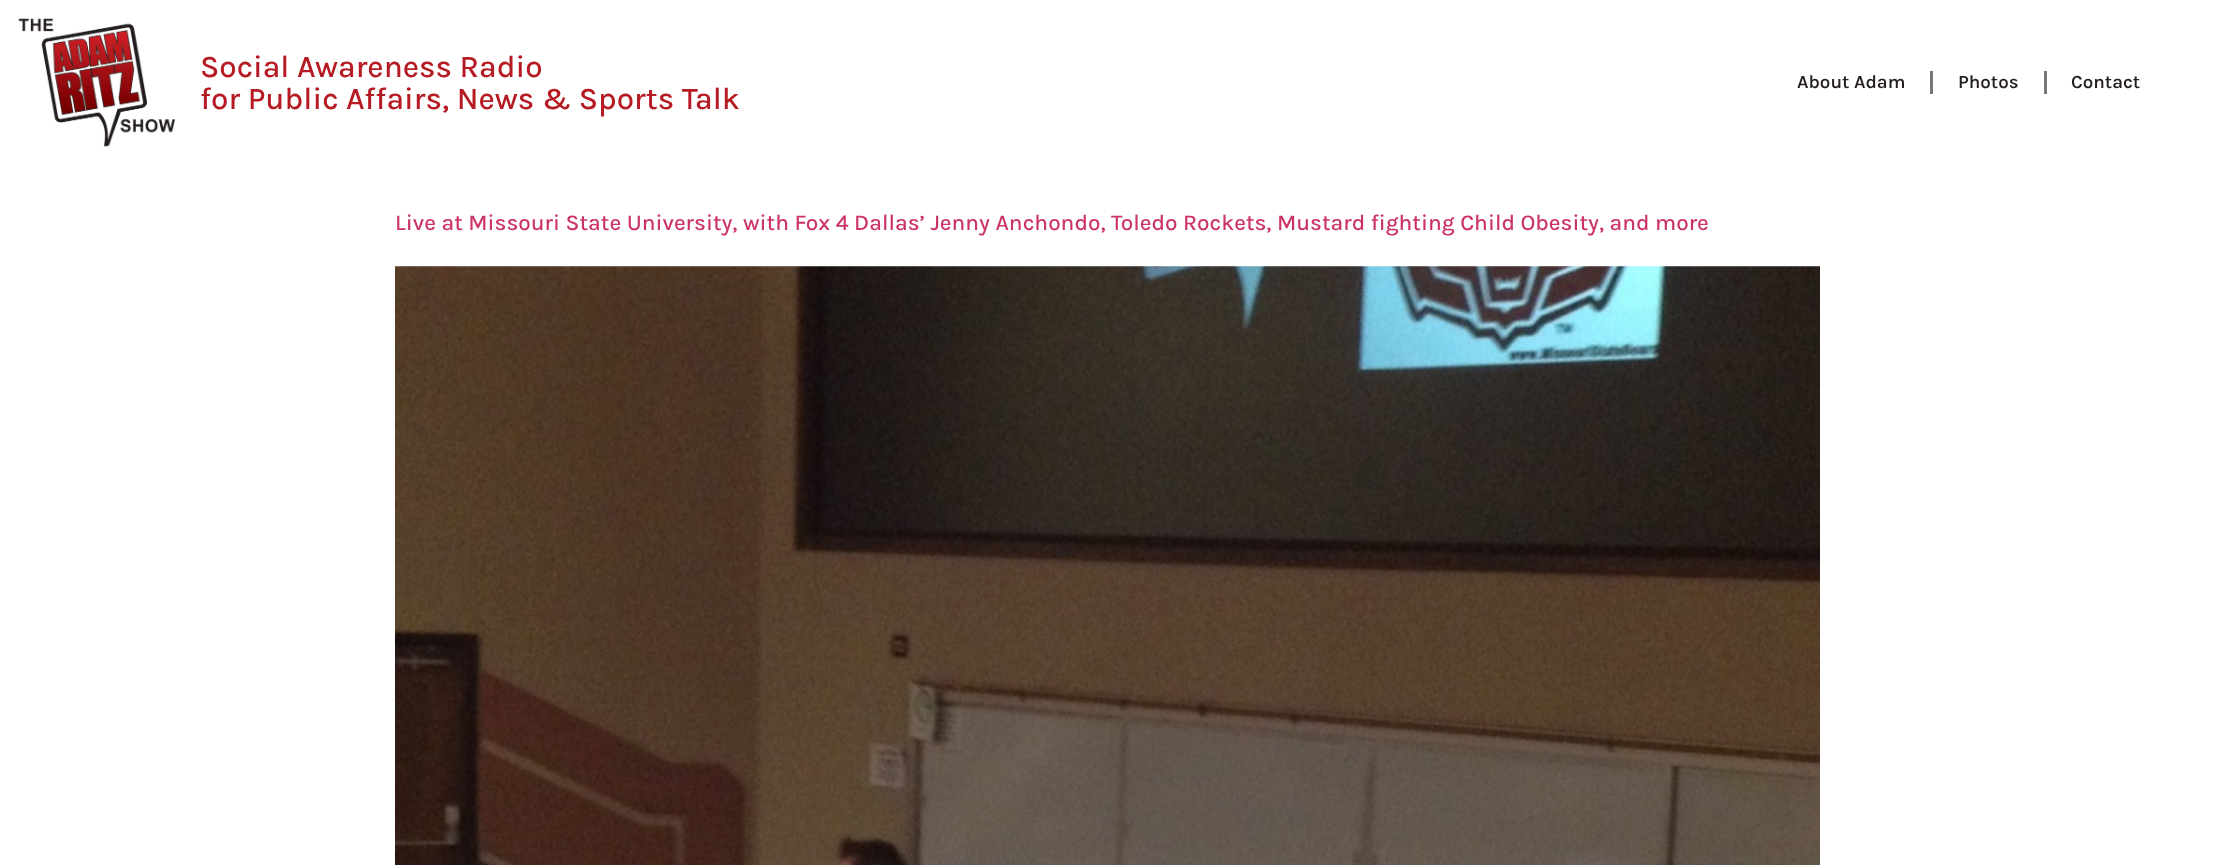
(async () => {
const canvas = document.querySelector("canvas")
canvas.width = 2214
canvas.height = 865
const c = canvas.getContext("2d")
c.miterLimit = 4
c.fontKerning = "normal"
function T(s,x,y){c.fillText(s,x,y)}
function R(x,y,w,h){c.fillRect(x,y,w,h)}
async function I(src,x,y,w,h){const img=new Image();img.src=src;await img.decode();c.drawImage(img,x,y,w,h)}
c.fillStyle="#fff"
R(0,0,2214,865)
await I("1.png",18,18,157,129)
c.font="500 31.25px Karla"
c.fillStyle="#b61b23"
T("Social Awareness Radio",200,77)
T("for Public Affairs, News & Sports Talk",200,109)
c.font="600 18.75px Karla"
c.fillStyle="#241e20"
T("About Adam",1797,88)
c.fillStyle="#777"
R(1930,71,3,23)
c.fillStyle="#241e20"
T("Photos",1958,88)
c.fillStyle="#777"
R(2044,71,3,23)
c.fillStyle="#241e20"
T("Contact",2071,88)
c.font="500 22.5px Karla"
c.fillStyle="#c36"
T("Live at Missouri State University, with Fox 4 Dallas’ Jenny Anchondo, Toledo Rockets, Mustard fighting Child Obesity, and more",395,230)
await I("2.png",395,266,1425,599)
})()
